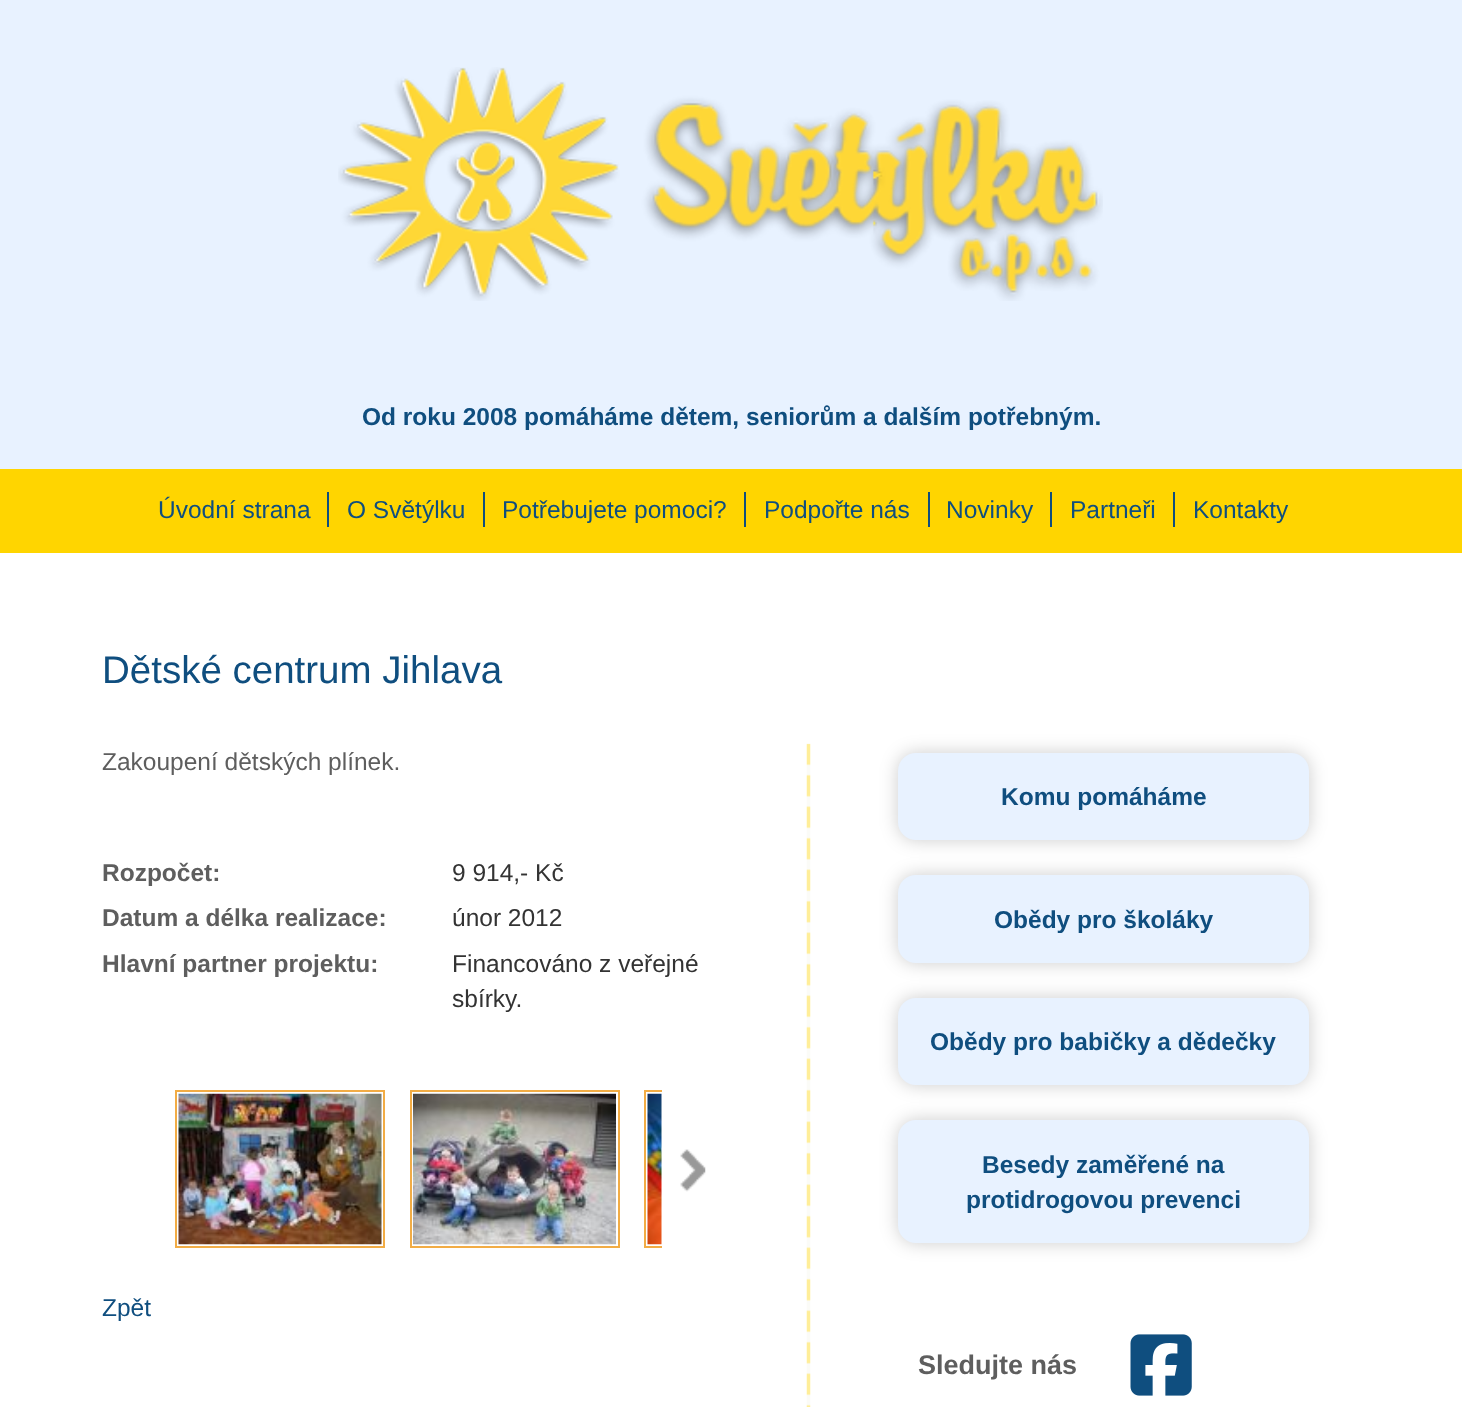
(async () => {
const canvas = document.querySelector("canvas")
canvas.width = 1462
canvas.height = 1407
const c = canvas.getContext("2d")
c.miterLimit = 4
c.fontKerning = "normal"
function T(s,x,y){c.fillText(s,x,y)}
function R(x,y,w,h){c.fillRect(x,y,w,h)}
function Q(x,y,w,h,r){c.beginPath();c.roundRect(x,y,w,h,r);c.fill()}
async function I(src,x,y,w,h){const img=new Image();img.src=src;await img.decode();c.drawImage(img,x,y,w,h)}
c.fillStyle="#fff"
R(0,0,1462,1407)
c.fillStyle="#e8f2ff"
R(0,0,1462,469)
await I("1.png",338,67,765,234)
c.font="bold 24.5px Liberation Sans"
c.fillStyle="#0f4e7f"
T("Od roku 2008 pomáháme dětem, seniorům a dalším potřebným.",362,425)
c.fillStyle="#ffd500"
R(0,469,1462,84)
c.fillStyle="#0f4e7f"
R(327,492,2,35)
c.font="24.5px Liberation Sans"
T("Úvodní strana",158,518)
R(483,492,2,35)
T("O Světýlku",347,518)
R(744,492,2,35)
T("Potřebujete pomoci?",502,518)
R(928,492,2,35)
T("Podpořte nás",764,518)
R(1050,492,2,35)
T("Novinky",946,518)
R(1173,492,2,35)
T("Partneři",1070,518)
T("Kontakty",1193,518)
c.font="38.5px Liberation Sans"
T("Dětské centrum Jihlava",102,683)
await I("2.png",806,743,5,664)
c.font="24.5px Liberation Sans"
c.fillStyle="#5e5e5e"
T("Zakoupení dětských plínek.",102,770)
c.font="bold 24.5px Liberation Sans"
T("Rozpočet:",102,881)
c.font="24.5px Liberation Sans"
c.fillStyle="#333"
T("9 914,- Kč",452,881)
c.font="bold 24.5px Liberation Sans"
c.fillStyle="#5e5e5e"
T("Datum a délka realizace:",102,926)
c.font="24.5px Liberation Sans"
c.fillStyle="#333"
T("únor 2012",452,926)
c.font="bold 24.5px Liberation Sans"
c.fillStyle="#5e5e5e"
T("Hlavní partner projektu:",102,972)
c.font="24.5px Liberation Sans"
c.fillStyle="#333"
T("Financováno z veřejné",452,972)
T("sbírky.",452,1007)
c.strokeStyle="#f2ac45"
c.lineWidth=2
c.strokeRect(176,1091,208,156)
await I("3.png",178,1093,204,152)
c.strokeRect(411,1091,208,156)
await I("4.png",413,1093,203,152)
c.save()
c.beginPath()
c.rect(163,1090,499,158)
c.clip()
c.strokeRect(645,1091,208,156)
c.restore()
await I("5.png",647,1093,15,152)
await I("6.png",680,1149,26,43)
c.fillStyle="#0f4e7f"
T("Zpět",102,1316)
c.fillStyle="#00000033"
c.filter="blur(9px)"
c.beginPath()
c.roundRect(898,753,411,87,18)
c.fill()
c.filter="none"
c.fillStyle="#e8f2ff"
Q(898,753,411,87,18)
c.font="bold 24.5px Liberation Sans"
c.fillStyle="#0f4e7f"
T("Komu pomáháme",1001,805)
c.fillStyle="#00000033"
c.filter="blur(9px)"
c.beginPath()
c.roundRect(898,875,411,88,18)
c.fill()
c.filter="none"
c.fillStyle="#e8f2ff"
Q(898,875,411,88,18)
c.fillStyle="#0f4e7f"
T("Obědy pro školáky",994,928)
c.fillStyle="#00000033"
c.filter="blur(9px)"
c.beginPath()
c.roundRect(898,998,411,87,18)
c.fill()
c.filter="none"
c.fillStyle="#e8f2ff"
Q(898,998,411,87,18)
c.fillStyle="#0f4e7f"
T("Obědy pro babičky a dědečky",930,1050)
c.fillStyle="#00000033"
c.filter="blur(9px)"
c.beginPath()
c.roundRect(898,1120,411,123,18)
c.fill()
c.filter="none"
c.fillStyle="#e8f2ff"
Q(898,1120,411,123,18)
c.fillStyle="#0f4e7f"
T("Besedy zaměřené na",982,1173)
T("protidrogovou prevenci",966,1208)
c.font="bold 27px Liberation Sans"
c.fillStyle="#5e5e5e"
T("Sledujte nás",918,1374)
await I("7.png",1130,1334,62,62)
})()
